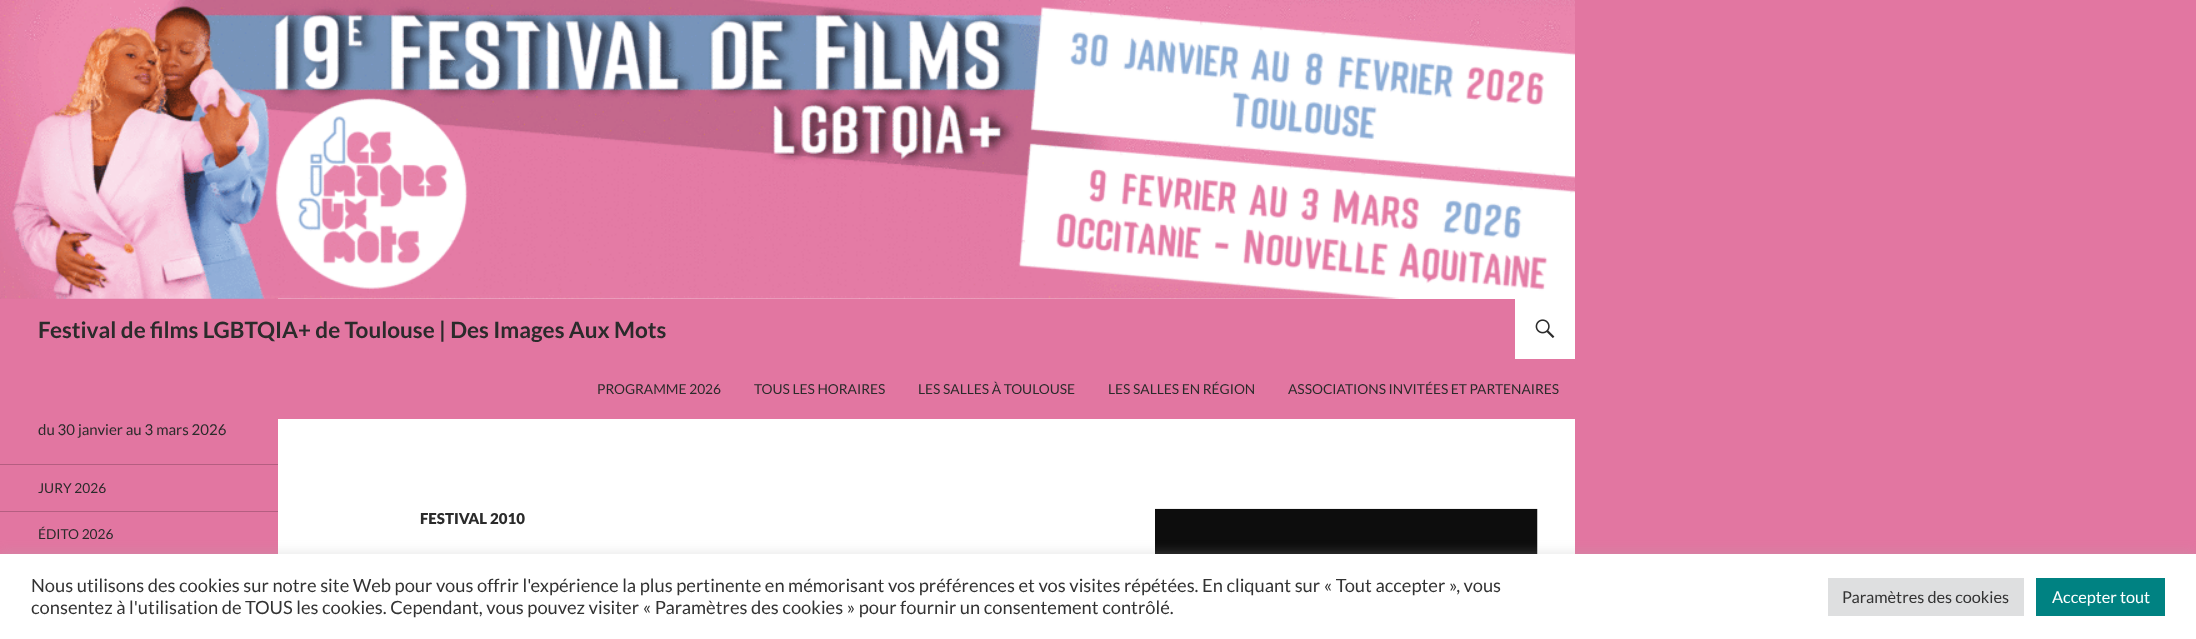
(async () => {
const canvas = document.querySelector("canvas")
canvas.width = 2196
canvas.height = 639
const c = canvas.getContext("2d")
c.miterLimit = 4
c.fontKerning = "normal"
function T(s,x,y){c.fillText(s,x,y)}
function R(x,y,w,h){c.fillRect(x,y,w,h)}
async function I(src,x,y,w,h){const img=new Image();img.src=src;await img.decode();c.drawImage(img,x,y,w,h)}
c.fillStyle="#e276a1"
R(0,0,2196,639)
c.fillStyle="#fff"
R(278,298,1297,256)
await I("1.png",0,0,1575,299)
c.fillStyle="#e276a1"
R(278,299,1297,120)
c.font="bold 22.5px Lato"
c.fillStyle="#2b2b2b"
T("Festival de films LGBTQIA+ de Toulouse | Des Images Aux Mots",38,338)
c.fillStyle="#fff"
R(1515,299,60,60)
await I("2.png",1535,319,20,19)
c.font="13.75px Lato"
c.fillStyle="#2b2b2b"
T("PROGRAMME 2026",597,394)
T("TOUS LES HORAIRES",754,394)
T("LES SALLES À TOULOUSE",918,394)
T("LES SALLES EN RÉGION",1108,394)
T("ASSOCIATIONS INVITÉES ET PARTENAIRES",1288,394)
c.font="15px Lato"
T("du 30 janvier au 3 mars 2026",38,435)
c.fillStyle="#b55e81"
R(0,464,278,1)
c.font="13.75px Lato"
c.fillStyle="#2b2b2b"
T("JURY 2026",38,493)
c.fillStyle="#b55e81"
R(0,511,278,1)
c.fillStyle="#2b2b2b"
T("ÉDITO 2026",38,539)
c.font="900 15px Lato"
T("FESTIVAL 2010",420,524)
await I("3.png",1155,508,383,46)
c.fillStyle="#acabab4d"
c.filter="blur(6px)"
c.beginPath()
c.rect(0,553,2196,86)
c.fill()
c.filter="none"
c.fillStyle="#fff"
R(0,554,2196,85)
c.font="18.33px Lato"
c.fillStyle="#333"
T("Nous utilisons des cookies sur notre site Web pour vous offrir l'expérience la plus pertinente en mémorisant vos préférences et vos visites répétées. En cliquant sur « Tout accepter », vous",31,592)
T("consentez à l'utilisation de TOUS les cookies. Cependant, vous pouvez visiter « Paramètres des cookies » pour fournir un consentement contrôlé.",31,614)
c.fillStyle="#dedfe0"
R(1828,578,196,38)
c.font="16.25px Lato"
c.fillStyle="#333"
T("Paramètres des cookies",1842,603)
c.fillStyle="#008282"
R(2036,578,129,38)
c.fillStyle="#fff"
T("Accepter tout",2052,603)
})()
